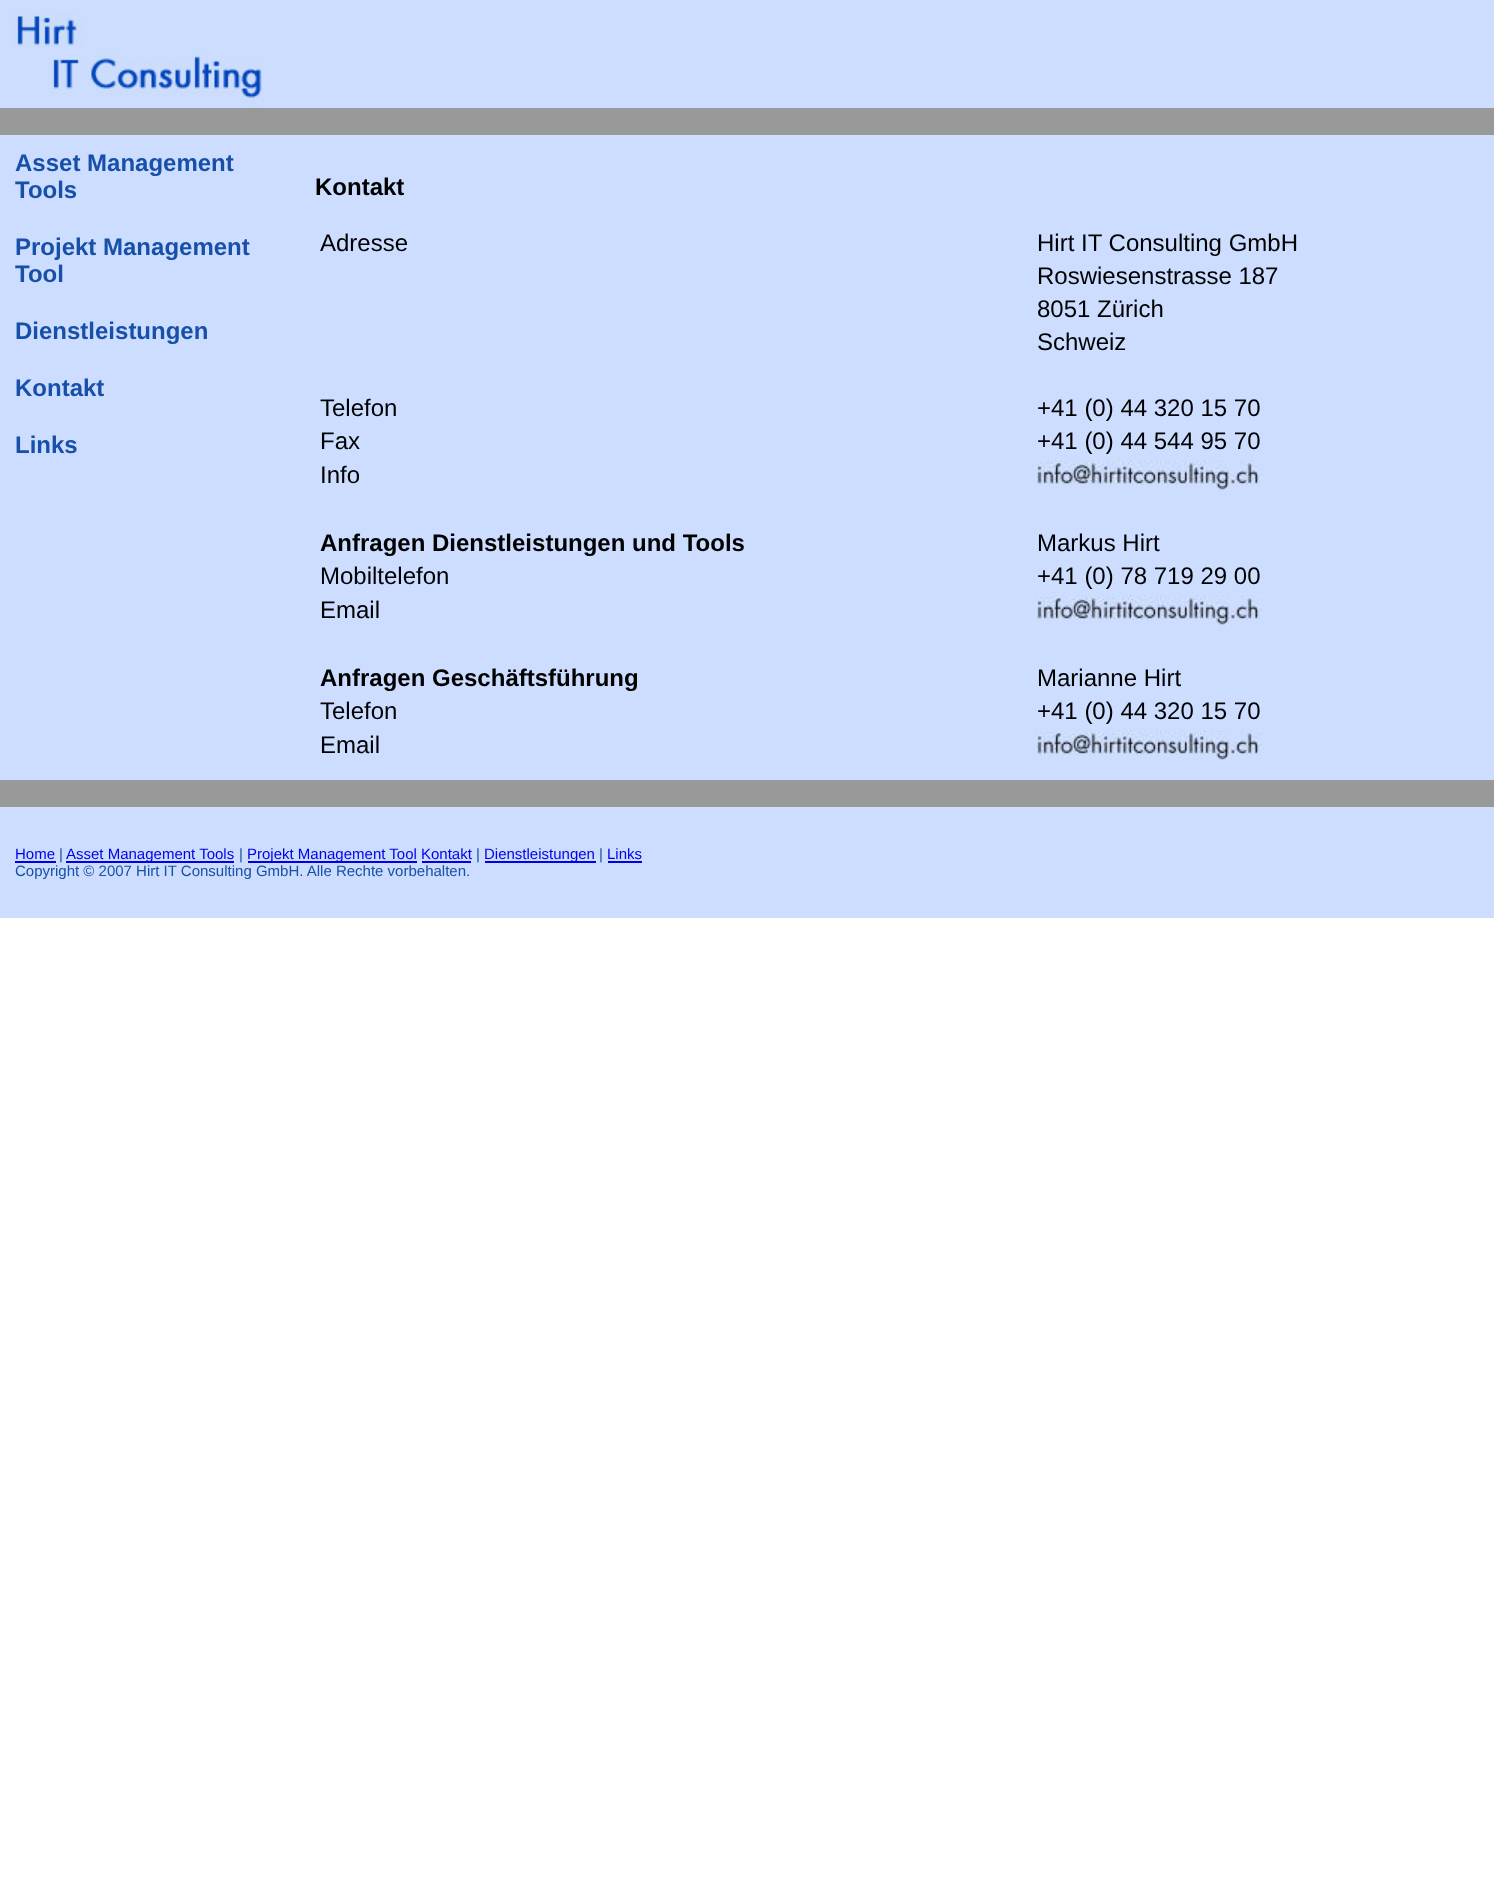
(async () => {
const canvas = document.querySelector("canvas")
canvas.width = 1494
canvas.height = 1904
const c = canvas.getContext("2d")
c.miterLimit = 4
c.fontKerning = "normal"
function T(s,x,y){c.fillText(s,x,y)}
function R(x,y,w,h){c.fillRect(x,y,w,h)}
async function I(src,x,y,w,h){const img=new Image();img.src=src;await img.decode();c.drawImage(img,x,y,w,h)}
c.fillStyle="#fff"
R(0,0,1494,1904)
c.fillStyle="#cdf"
R(0,0,1494,918)
await I("1.png",12,12,252,96)
c.fillStyle="#999"
R(0,108,1494,27)
c.font="bold 24px Liberation Sans"
c.fillStyle="#174fa9"
T("Asset Management",15,171)
T("Tools",15,198)
T("Projekt Management",15,255)
T("Tool",15,282)
T("Dienstleistungen",15,339)
T("Kontakt",15,396)
T("Links",15,453)
c.fillStyle="#000"
T("Kontakt",315,195)
c.font="24px Liberation Sans"
T("Adresse",320,251)
T("Hirt IT Consulting GmbH",1037,251)
T("Roswiesenstrasse 187",1037,284)
T("8051 Zürich",1037,317)
T("Schweiz",1037,350)
T("Telefon",320,416)
T("+41 (0) 44 320 15 70",1037,416)
T("Fax",320,449)
T("+41 (0) 44 544 95 70",1037,449)
T("Info",320,483)
await I("2.png",1036,460,226,31)
c.font="bold 24px Liberation Sans"
T("Anfragen Dienstleistungen und Tools",320,551)
c.font="24px Liberation Sans"
T("Markus Hirt",1037,551)
T("Mobiltelefon",320,584)
T("+41 (0) 78 719 29 00",1037,584)
T("Email",320,618)
await I("2.png",1036,595,226,31)
c.font="bold 24px Liberation Sans"
T("Anfragen Geschäftsführung",320,686)
c.font="24px Liberation Sans"
T("Marianne Hirt",1037,686)
T("Telefon",320,719)
T("+41 (0) 44 320 15 70",1037,719)
T("Email",320,753)
await I("2.png",1036,730,226,31)
c.fillStyle="#999"
R(0,780,1494,27)
c.font="15px Liberation Sans"
c.fillStyle="#00e"
T("Home",15,859)
R(15,861,41,2)
c.fillStyle="#174fa9"
T("|",59,859)
c.fillStyle="#00e"
R(66,861,168,2)
T("Asset Management Tools",66,859)
c.fillStyle="#174fa9"
T("|",239,859)
c.fillStyle="#00e"
R(248,861,169,2)
T("Projekt Management Tool Kontakt",247,859)
R(422,861,49,2)
c.fillStyle="#174fa9"
T("|",476,859)
c.fillStyle="#00e"
R(485,861,111,2)
T("Dienstleistungen",484,859)
c.fillStyle="#174fa9"
T("|",599,859)
c.fillStyle="#00e"
T("Links",607,859)
R(608,861,34,2)
c.fillStyle="#174fa9"
T("Copyright © 2007 Hirt IT Consulting GmbH. Alle Rechte vorbehalten.",15,876)
})()
